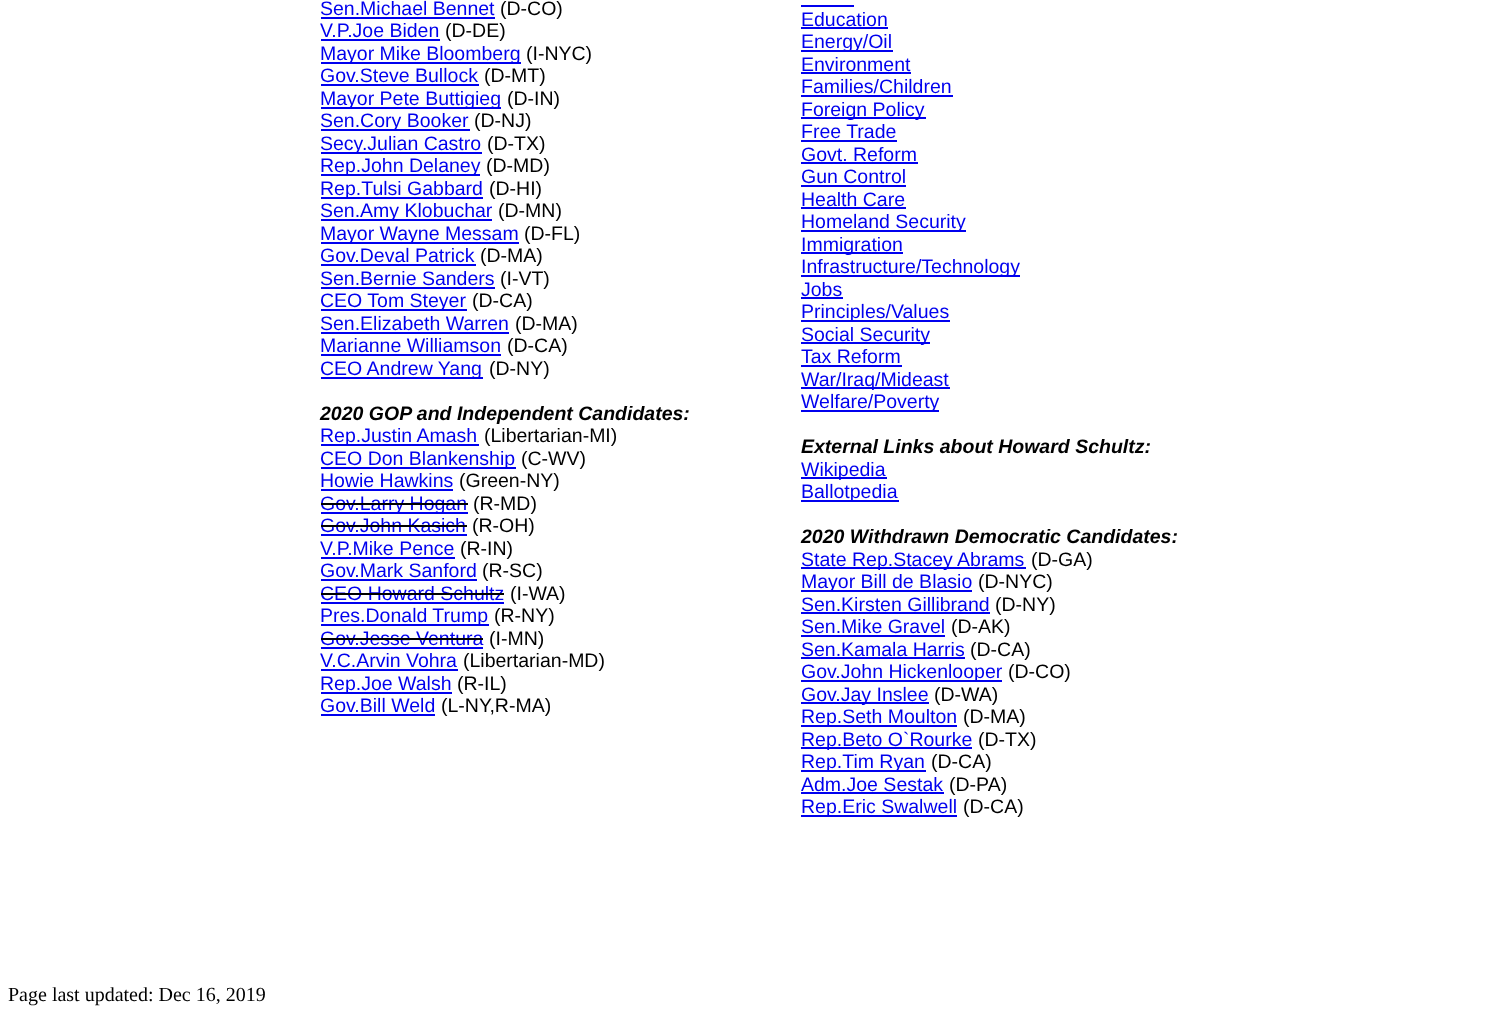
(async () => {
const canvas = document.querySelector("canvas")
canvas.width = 1498
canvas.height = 1014
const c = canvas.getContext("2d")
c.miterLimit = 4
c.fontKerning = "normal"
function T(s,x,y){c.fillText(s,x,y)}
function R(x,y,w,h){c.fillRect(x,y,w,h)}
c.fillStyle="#fff"
R(0,0,1498,1014)
c.font="19.5px Liberation Sans"
c.fillStyle="#00e"
T("Sen.Michael Bennet",320,15)
R(321,17,174,2)
c.fillStyle="#000"
T("(D-CO)",500,15)
c.fillStyle="#00e"
T("V.P.Joe Biden",320,37)
R(321,39,119,2)
c.fillStyle="#000"
T("(D-DE)",445,37)
c.fillStyle="#00e"
R(321,62,200,2)
T("Mayor Mike Bloomberg",320,60)
c.fillStyle="#000"
T("(I-NYC)",526,60)
c.fillStyle="#00e"
T("Gov.Steve Bullock",320,82)
R(321,84,158,2)
c.fillStyle="#000"
T("(D-MT)",484,82)
c.fillStyle="#00e"
R(321,107,180,2)
T("Mayor Pete Buttigieg",320,105)
c.fillStyle="#000"
T("(D-IN)",507,105)
c.fillStyle="#00e"
R(321,129,149,2)
T("Sen.Cory Booker",320,127)
c.fillStyle="#000"
T("(D-NJ)",474,127)
c.fillStyle="#00e"
R(321,152,161,2)
T("Secy.Julian Castro",320,150)
c.fillStyle="#000"
T("(D-TX)",487,150)
c.fillStyle="#00e"
R(321,174,159,2)
T("Rep.John Delaney",320,172)
c.fillStyle="#000"
T("(D-MD)",486,172)
c.fillStyle="#00e"
R(321,197,162,2)
T("Rep.Tulsi Gabbard",320,195)
c.fillStyle="#000"
T("(D-HI)",489,195)
c.fillStyle="#00e"
R(321,219,171,2)
T("Sen.Amy Klobuchar",320,217)
c.fillStyle="#000"
T("(D-MN)",498,217)
c.fillStyle="#00e"
R(321,242,198,2)
T("Mayor Wayne Messam",320,240)
c.fillStyle="#000"
T("(D-FL)",524,240)
c.fillStyle="#00e"
T("Gov.Deval Patrick",320,262)
R(321,264,155,2)
c.fillStyle="#000"
T("(D-MA)",480,262)
c.fillStyle="#00e"
T("Sen.Bernie Sanders",320,285)
R(321,287,174,2)
c.fillStyle="#000"
T("(I-VT)",500,285)
c.fillStyle="#00e"
R(321,309,146,2)
T("CEO Tom Steyer",320,307)
c.fillStyle="#000"
T("(D-CA)",472,307)
c.fillStyle="#00e"
T("Sen.Elizabeth Warren",320,330)
R(321,332,188,2)
c.fillStyle="#000"
T("(D-MA)",515,330)
c.fillStyle="#00e"
T("Marianne Williamson",320,352)
R(321,354,180,2)
c.fillStyle="#000"
T("(D-CA)",507,352)
c.fillStyle="#00e"
R(321,377,162,2)
T("CEO Andrew Yang",320,375)
c.fillStyle="#000"
T("(D-NY)",489,375)
c.font="italic bold 19.5px Liberation Sans"
T("2020 GOP and Independent Candidates:",320,420)
c.fillStyle="#00e"
R(321,444,158,2)
c.font="19.5px Liberation Sans"
T("Rep.Justin Amash",320,442)
c.fillStyle="#000"
T("(Libertarian-MI)",484,442)
c.fillStyle="#00e"
R(321,467,195,2)
T("CEO Don Blankenship",320,465)
c.fillStyle="#000"
T("(C-WV)",521,465)
c.fillStyle="#00e"
T("Howie Hawkins",320,487)
R(321,489,132,2)
c.fillStyle="#000"
T("(Green-NY)",459,487)
c.fillStyle="#00e"
R(321,512,147,2)
T("Gov.Larry Hogan",320,510)
c.fillStyle="#000"
R(321,503,147,2)
T("(R-MD)",473,510)
c.fillStyle="#00e"
T("Gov.John Kasich",320,532)
R(321,534,146,2)
c.fillStyle="#000"
R(321,525,146,2)
T("(R-OH)",472,532)
c.fillStyle="#00e"
T("V.P.Mike Pence",320,555)
R(321,557,134,2)
c.fillStyle="#000"
T("(R-IN)",460,555)
c.fillStyle="#00e"
T("Gov.Mark Sanford",320,577)
R(321,579,156,2)
c.fillStyle="#000"
T("(R-SC)",482,577)
c.fillStyle="#00e"
T("CEO Howard Schultz",320,600)
R(321,602,183,2)
c.fillStyle="#000"
R(321,593,183,2)
T("(I-WA)",510,600)
c.fillStyle="#00e"
R(321,624,168,2)
T("Pres.Donald Trump",320,622)
c.fillStyle="#000"
T("(R-NY)",494,622)
c.fillStyle="#00e"
T("Gov.Jesse Ventura",320,645)
R(321,647,162,2)
c.fillStyle="#000"
R(321,638,162,2)
T("(I-MN)",489,645)
c.fillStyle="#00e"
T("V.C.Arvin Vohra",320,667)
R(321,669,137,2)
c.fillStyle="#000"
T("(Libertarian-MD)",463,667)
c.fillStyle="#00e"
R(321,692,131,2)
T("Rep.Joe Walsh",320,690)
c.fillStyle="#000"
T("(R-IL)",457,690)
c.fillStyle="#00e"
T("Gov.Bill Weld",320,712)
R(321,714,114,2)
c.fillStyle="#000"
T("(L-NY,R-MA)",441,712)
c.fillStyle="#00e"
T("Education",801,26)
R(801,5,53,2)
R(801,27,87,2)
R(801,50,92,2)
T("Energy/Oil",801,48)
T("Environment",801,71)
R(801,72,110,2)
T("Families/Children",801,93)
R(801,95,152,2)
R(801,117,125,2)
T("Foreign Policy",801,116)
T("Free Trade",801,138)
R(801,140,96,2)
T("Govt. Reform",801,161)
R(801,162,117,2)
T("Gun Control",801,183)
R(801,185,105,2)
T("Health Care",801,206)
R(801,207,105,2)
R(801,230,165,2)
T("Homeland Security",801,228)
R(801,252,102,2)
T("Immigration",801,251)
R(801,275,219,2)
T("Infrastructure/Technology",801,273)
T("Jobs",801,296)
R(801,297,42,2)
R(801,320,149,2)
T("Principles/Values",801,318)
R(801,342,129,2)
T("Social Security",801,341)
T("Tax Reform",801,363)
R(801,365,101,2)
R(801,387,149,2)
T("War/Iraq/Mideast",801,386)
R(801,410,138,2)
T("Welfare/Poverty",801,408)
c.font="italic bold 19.5px Liberation Sans"
c.fillStyle="#000"
T("External Links about Howard Schultz:",801,453)
c.fillStyle="#00e"
R(801,477,86,2)
c.font="19.5px Liberation Sans"
T("Wikipedia",801,476)
R(801,500,98,2)
T("Ballotpedia",801,498)
c.font="italic bold 19.5px Liberation Sans"
c.fillStyle="#000"
T("2020 Withdrawn Democratic Candidates:",801,543)
c.fillStyle="#00e"
R(801,567,225,2)
c.font="19.5px Liberation Sans"
T("State Rep.Stacey Abrams",801,566)
c.fillStyle="#000"
T("(D-GA)",1031,566)
c.fillStyle="#00e"
R(801,590,171,2)
T("Mayor Bill de Blasio",801,588)
c.fillStyle="#000"
T("(D-NYC)",978,588)
c.fillStyle="#00e"
T("Sen.Kirsten Gillibrand",801,611)
R(801,612,189,2)
c.fillStyle="#000"
T("(D-NY)",995,611)
c.fillStyle="#00e"
T("Sen.Mike Gravel",801,633)
R(801,635,144,2)
c.fillStyle="#000"
T("(D-AK)",951,633)
c.fillStyle="#00e"
T("Sen.Kamala Harris",801,656)
R(801,657,164,2)
c.fillStyle="#000"
T("(D-CA)",970,656)
c.fillStyle="#00e"
R(801,680,201,2)
T("Gov.John Hickenlooper",801,678)
c.fillStyle="#000"
T("(D-CO)",1008,678)
c.fillStyle="#00e"
R(801,702,128,2)
T("Gov.Jay Inslee",801,701)
c.fillStyle="#000"
T("(D-WA)",934,701)
c.fillStyle="#00e"
R(801,725,156,2)
T("Rep.Seth Moulton",801,723)
c.fillStyle="#000"
T("(D-MA)",963,723)
c.fillStyle="#00e"
R(801,747,171,2)
T("Rep.Beto O`Rourke",801,746)
c.fillStyle="#000"
T("(D-TX)",978,746)
c.fillStyle="#00e"
R(801,770,125,2)
T("Rep.Tim Ryan",801,768)
c.fillStyle="#000"
T("(D-CA)",931,768)
c.fillStyle="#00e"
T("Adm.Joe Sestak",801,791)
R(801,792,143,2)
c.fillStyle="#000"
T("(D-PA)",949,791)
c.fillStyle="#00e"
R(801,815,156,2)
T("Rep.Eric Swalwell",801,813)
c.fillStyle="#000"
T("(D-CA)",963,813)
c.font="20px Liberation Serif"
T("Page last updated: Dec 16, 2019",8,1001)
})()
